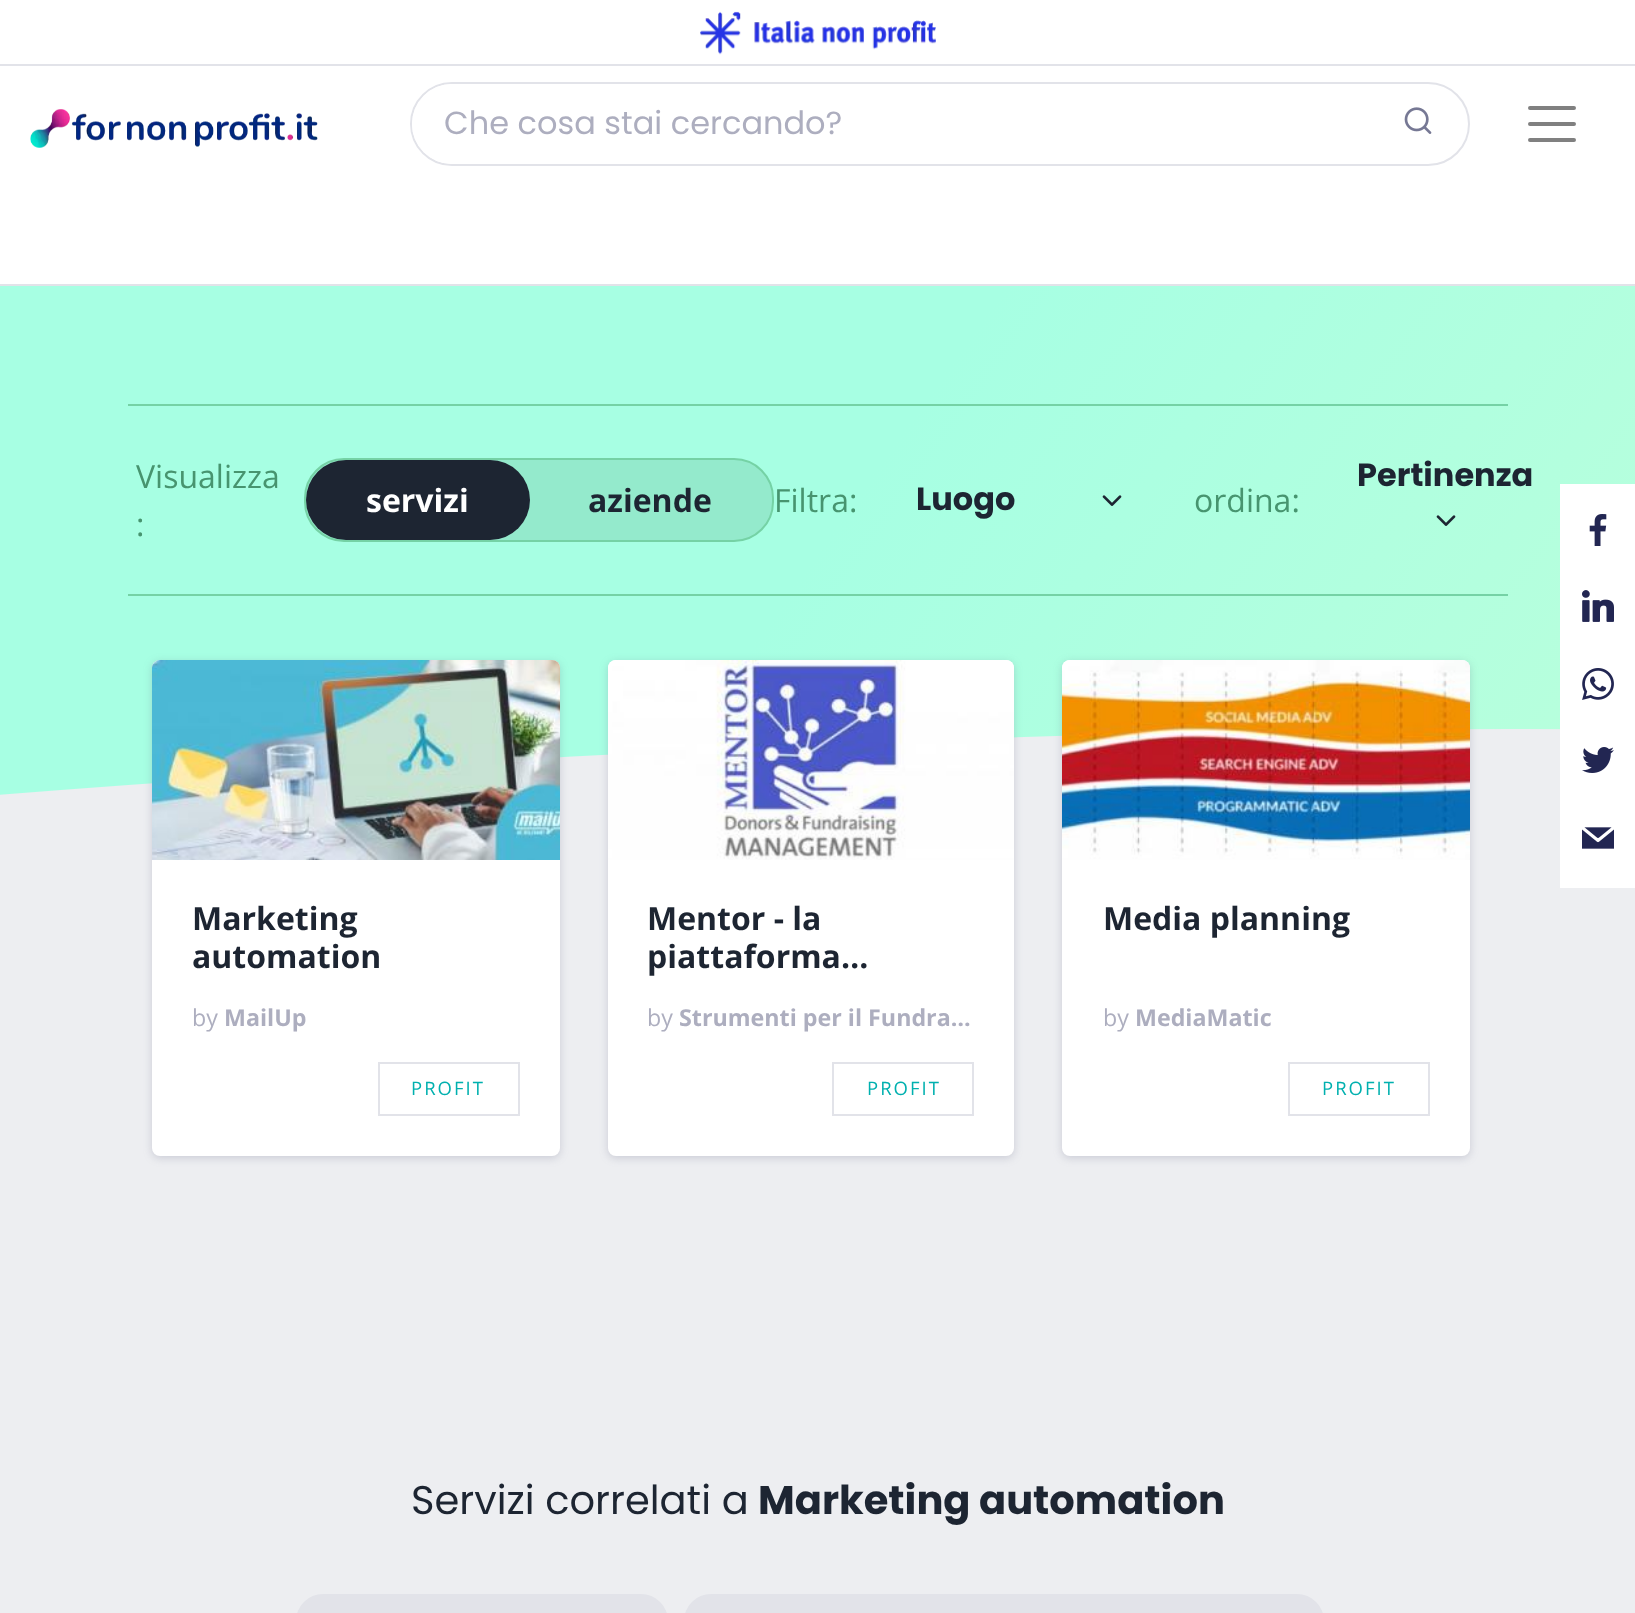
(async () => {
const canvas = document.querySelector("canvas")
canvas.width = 1635
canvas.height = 1613
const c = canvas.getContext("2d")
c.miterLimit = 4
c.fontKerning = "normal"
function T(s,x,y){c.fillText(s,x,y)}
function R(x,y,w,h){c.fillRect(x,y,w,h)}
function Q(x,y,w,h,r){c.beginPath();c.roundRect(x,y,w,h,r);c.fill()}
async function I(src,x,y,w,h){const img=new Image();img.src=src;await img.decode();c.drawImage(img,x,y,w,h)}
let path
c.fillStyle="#edeef1"
R(0,0,1635,1613)
c.fillStyle="#fff"
R(0,0,1635,284)
c.fillStyle="#e2e3e9"
R(0,64,1635,2)
await I("1.png",700,11,236,44)
await I("2.png",30,109,288,39)
c.beginPath()
c.roundRect(411,83,1058,82,41)
c.strokeStyle="#e2e3e9"
c.lineWidth=2
c.stroke()
c.fillStyle="#fff"
c.beginPath()
c.roundRect(412,84,956,80,[40,4,4,40])
c.fill()
c.font="32px Poppins"
c.fillStyle="#adaebf"
T("Che cosa stai cercando?",444,134)
await I("3.png",1404,107,28,27)
path = new Path2D("M1530 108h44m-44 16h44m-44 16h44")
c.strokeStyle="#808080"
c.lineWidth=4
c.lineCap="round"
c.stroke(path)
c.fillStyle="#e2e3e9"
R(0,284,1635,2)
await I("4.png",0,286,1635,509)
c.fillStyle="#75d2a5"
R(128,404,1380,2)
R(128,594,1380,2)
c.font="32px Open Sans"
c.fillStyle="#47946f"
T("Visualizza",136,488)
T(":",136,536)
c.fillStyle="#94eacc"
c.beginPath()
c.roundRect(305,459,468,82,39)
c.fill()
c.strokeStyle="#75d2a5"
c.lineWidth=2
c.stroke()
c.fillStyle="#1d2532"
Q(306,460,224,80,40)
c.font="bold 32px Open Sans"
c.fillStyle="#fff"
T("servizi",366,512)
c.fillStyle="#1d2532"
T("aziende",588,512)
c.font="32px Open Sans"
c.fillStyle="#47946f"
T("Filtra:",774,512)
c.font="bold 32px Poppins"
c.fillStyle="#1d2532"
T("Luogo",916,510)
await I("5.png",1102,495,20,11)
T("Pertinenza",1357,486)
await I("6.png",1436,515,20,11)
c.font="32px Open Sans"
c.fillStyle="#47946f"
T("ordina:",1194,512)
c.fillStyle="#60638240"
c.filter="blur(4px)"
c.beginPath()
c.roundRect(152,662,408,496,8)
c.fill()
c.filter="none"
c.fillStyle="#fff"
Q(152,660,408,496,8)
await I("7.png",152,660,408,200)
c.font="bold 32px Open Sans"
c.fillStyle="#1d2532"
T("Marketing",192,930)
T("automation",192,968)
c.font="23.25px Open Sans"
c.fillStyle="#adaebf"
T("by",192,1026)
c.font="bold 23.25px Open Sans"
T("MailUp",224,1026)
c.strokeStyle="#e2e3e9"
c.strokeRect(379,1063,140,52)
c.letterSpacing="2px"
c.font="18.5px Open Sans"
c.fillStyle="#00b0af"
T("PROFIT",411,1095)
c.fillStyle="#60638240"
c.filter="blur(4px)"
c.beginPath()
c.roundRect(608,662,406,496,8)
c.fill()
c.filter="none"
c.fillStyle="#fff"
Q(608,660,406,496,8)
await I("8.png",608,660,406,200)
c.letterSpacing="0px"
c.font="bold 32px Open Sans"
c.fillStyle="#1d2532"
T("Mentor - la",647,930)
T("piattaforma…",647,968)
c.font="23.25px Open Sans"
c.fillStyle="#adaebf"
T("by",647,1026)
c.font="bold 23.25px Open Sans"
T("Strumenti per il Fundra…",679,1026)
c.strokeRect(833,1063,140,52)
c.letterSpacing="2px"
c.font="18.5px Open Sans"
c.fillStyle="#00b0af"
T("PROFIT",867,1095)
c.fillStyle="#60638240"
c.filter="blur(4px)"
c.beginPath()
c.roundRect(1062,662,408,496,8)
c.fill()
c.filter="none"
c.fillStyle="#fff"
Q(1062,660,408,496,8)
await I("9.png",1062,660,408,200)
c.letterSpacing="0px"
c.font="bold 32px Open Sans"
c.fillStyle="#1d2532"
T("Media planning",1103,930)
c.font="23.25px Open Sans"
c.fillStyle="#adaebf"
T("by",1103,1026)
c.font="bold 23.25px Open Sans"
T("MediaMatic",1135,1026)
c.strokeRect(1289,1063,140,52)
c.letterSpacing="2px"
c.font="18.5px Open Sans"
c.fillStyle="#00b0af"
T("PROFIT",1322,1095)
c.letterSpacing="0px"
c.font="40px Poppins"
c.fillStyle="#1d2532"
T("Servizi correlati a",411,1514)
c.font="bold 40px Poppins"
T("Marketing automation",758,1514)
c.fillStyle="#e2e3e9"
Q(296,1594,372,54,35)
Q(684,1594,640,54,35)
c.fillStyle="#fff"
R(1560,484,75,404)
await I("10.png",1589,514,18,32)
await I("11.png",1582,590,32,32)
await I("12.png",1582,668,32,32)
await I("13.png",1582,747,32,26)
await I("14.png",1582,827,32,22)
})()
